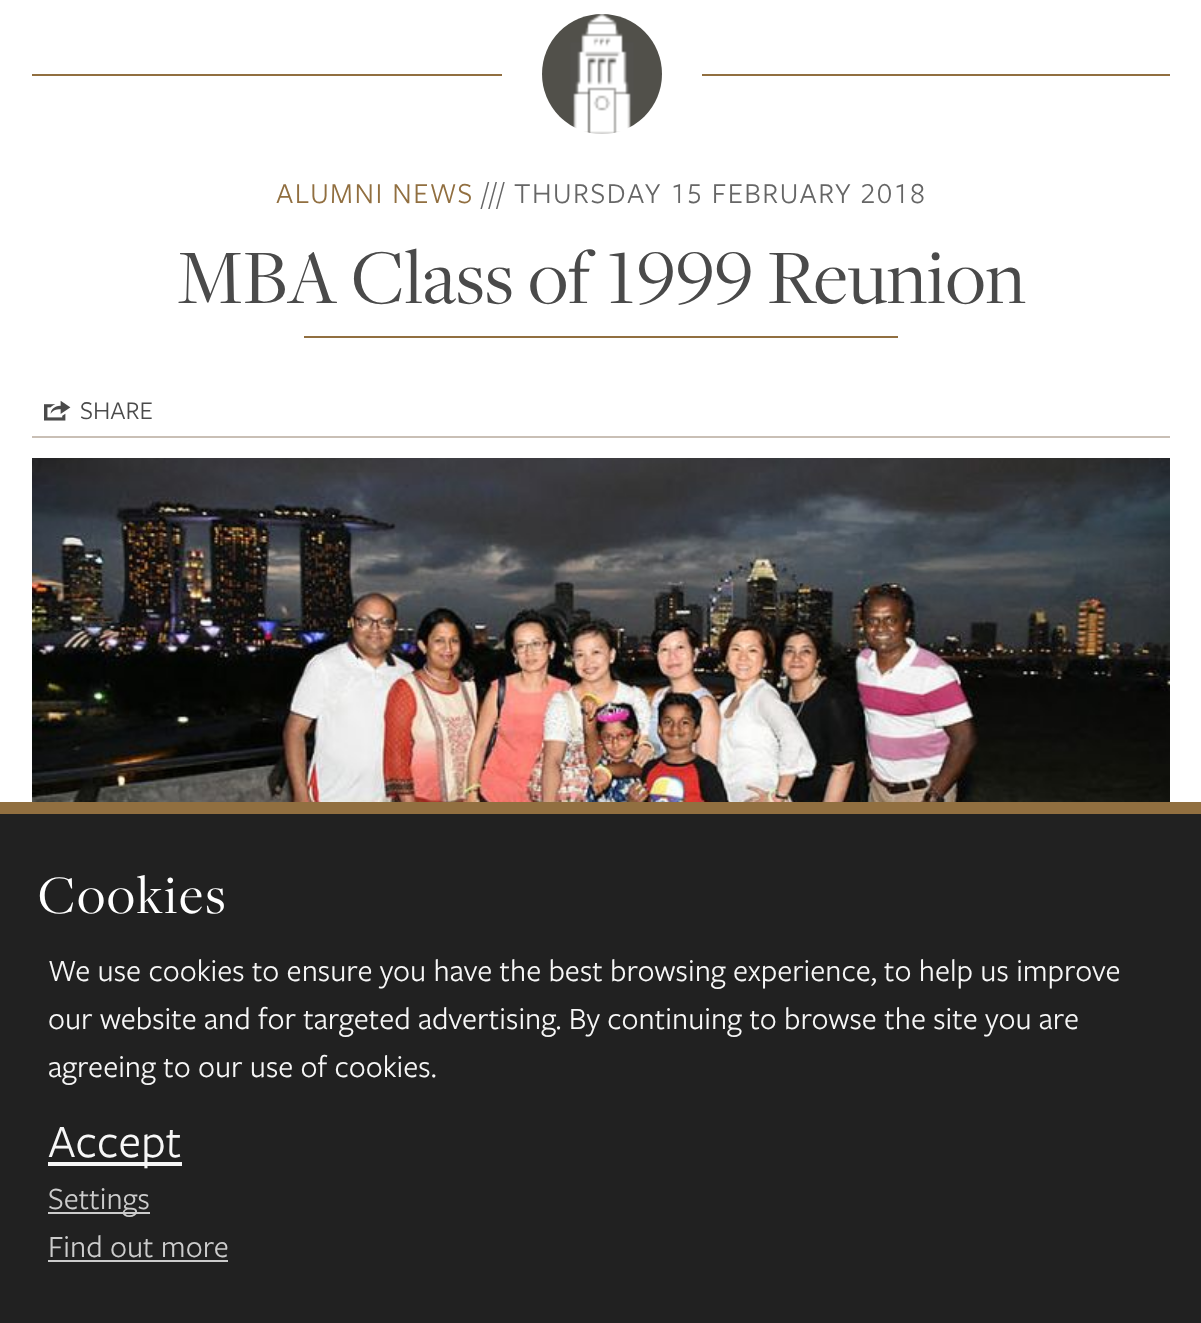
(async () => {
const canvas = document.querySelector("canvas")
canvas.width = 1201
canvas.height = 1323
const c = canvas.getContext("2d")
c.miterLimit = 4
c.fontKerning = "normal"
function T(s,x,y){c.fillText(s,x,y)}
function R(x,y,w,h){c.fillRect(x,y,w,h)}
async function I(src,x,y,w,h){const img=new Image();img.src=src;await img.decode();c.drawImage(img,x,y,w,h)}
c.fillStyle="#fff"
R(0,0,1201,1323)
c.fillStyle="#916f40"
R(32,74,470,2)
await I("1.png",542,14,120,120)
R(702,74,468,2)
c.letterSpacing="1.5px"
c.font="30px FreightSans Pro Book"
T("ALUMNI NEWS",276,203)
c.fillStyle="#666"
T("///",482,203)
c.font="30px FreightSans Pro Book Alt"
T("THURSDAY 15 FEBRUARY 2018",514,203)
c.letterSpacing="0px"
c.font="80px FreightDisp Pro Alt"
c.fillStyle="#4a4a4a"
T("MBA Class of 1999 Reunion",177,303)
c.fillStyle="#916f40"
R(304,336,594,2)
await I("2.png",44,400,27,21)
c.font="26.5px FreightSans Pro Book"
c.fillStyle="#4a4a4a"
T("SHARE",80,419)
c.fillStyle="#c9bfb5"
R(32,436,1138,2)
await I("3.png",32,458,1138,1)
await I("4.png",32,459,1138,343)
c.fillStyle="#212121"
R(0,814,1201,509)
c.fillStyle="#916f40"
R(0,802,1201,12)
c.letterSpacing="2px"
c.font="56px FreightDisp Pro"
c.fillStyle="#fff"
T("Cookies",38,913)
c.letterSpacing="0px"
c.font="32px FreightSans Pro Book"
c.fillStyle="#f7f7f7"
T("We use cookies to ensure you have the best browsing experience, to help us improve",48,981)
T("our website and for targeted advertising. By continuing to browse the site you are",48,1029)
T("agreeing to our use of cookies.",48,1077)
R(48,1162,134,4)
c.font="48px FreightSans Pro Book"
T("Accept",48,1157)
c.fillStyle="#ccc"
R(48,1212,102,2)
c.font="32px FreightSans Pro Book"
T("Settings",48,1209)
T("Find out more",48,1257)
R(48,1260,180,2)
})()
